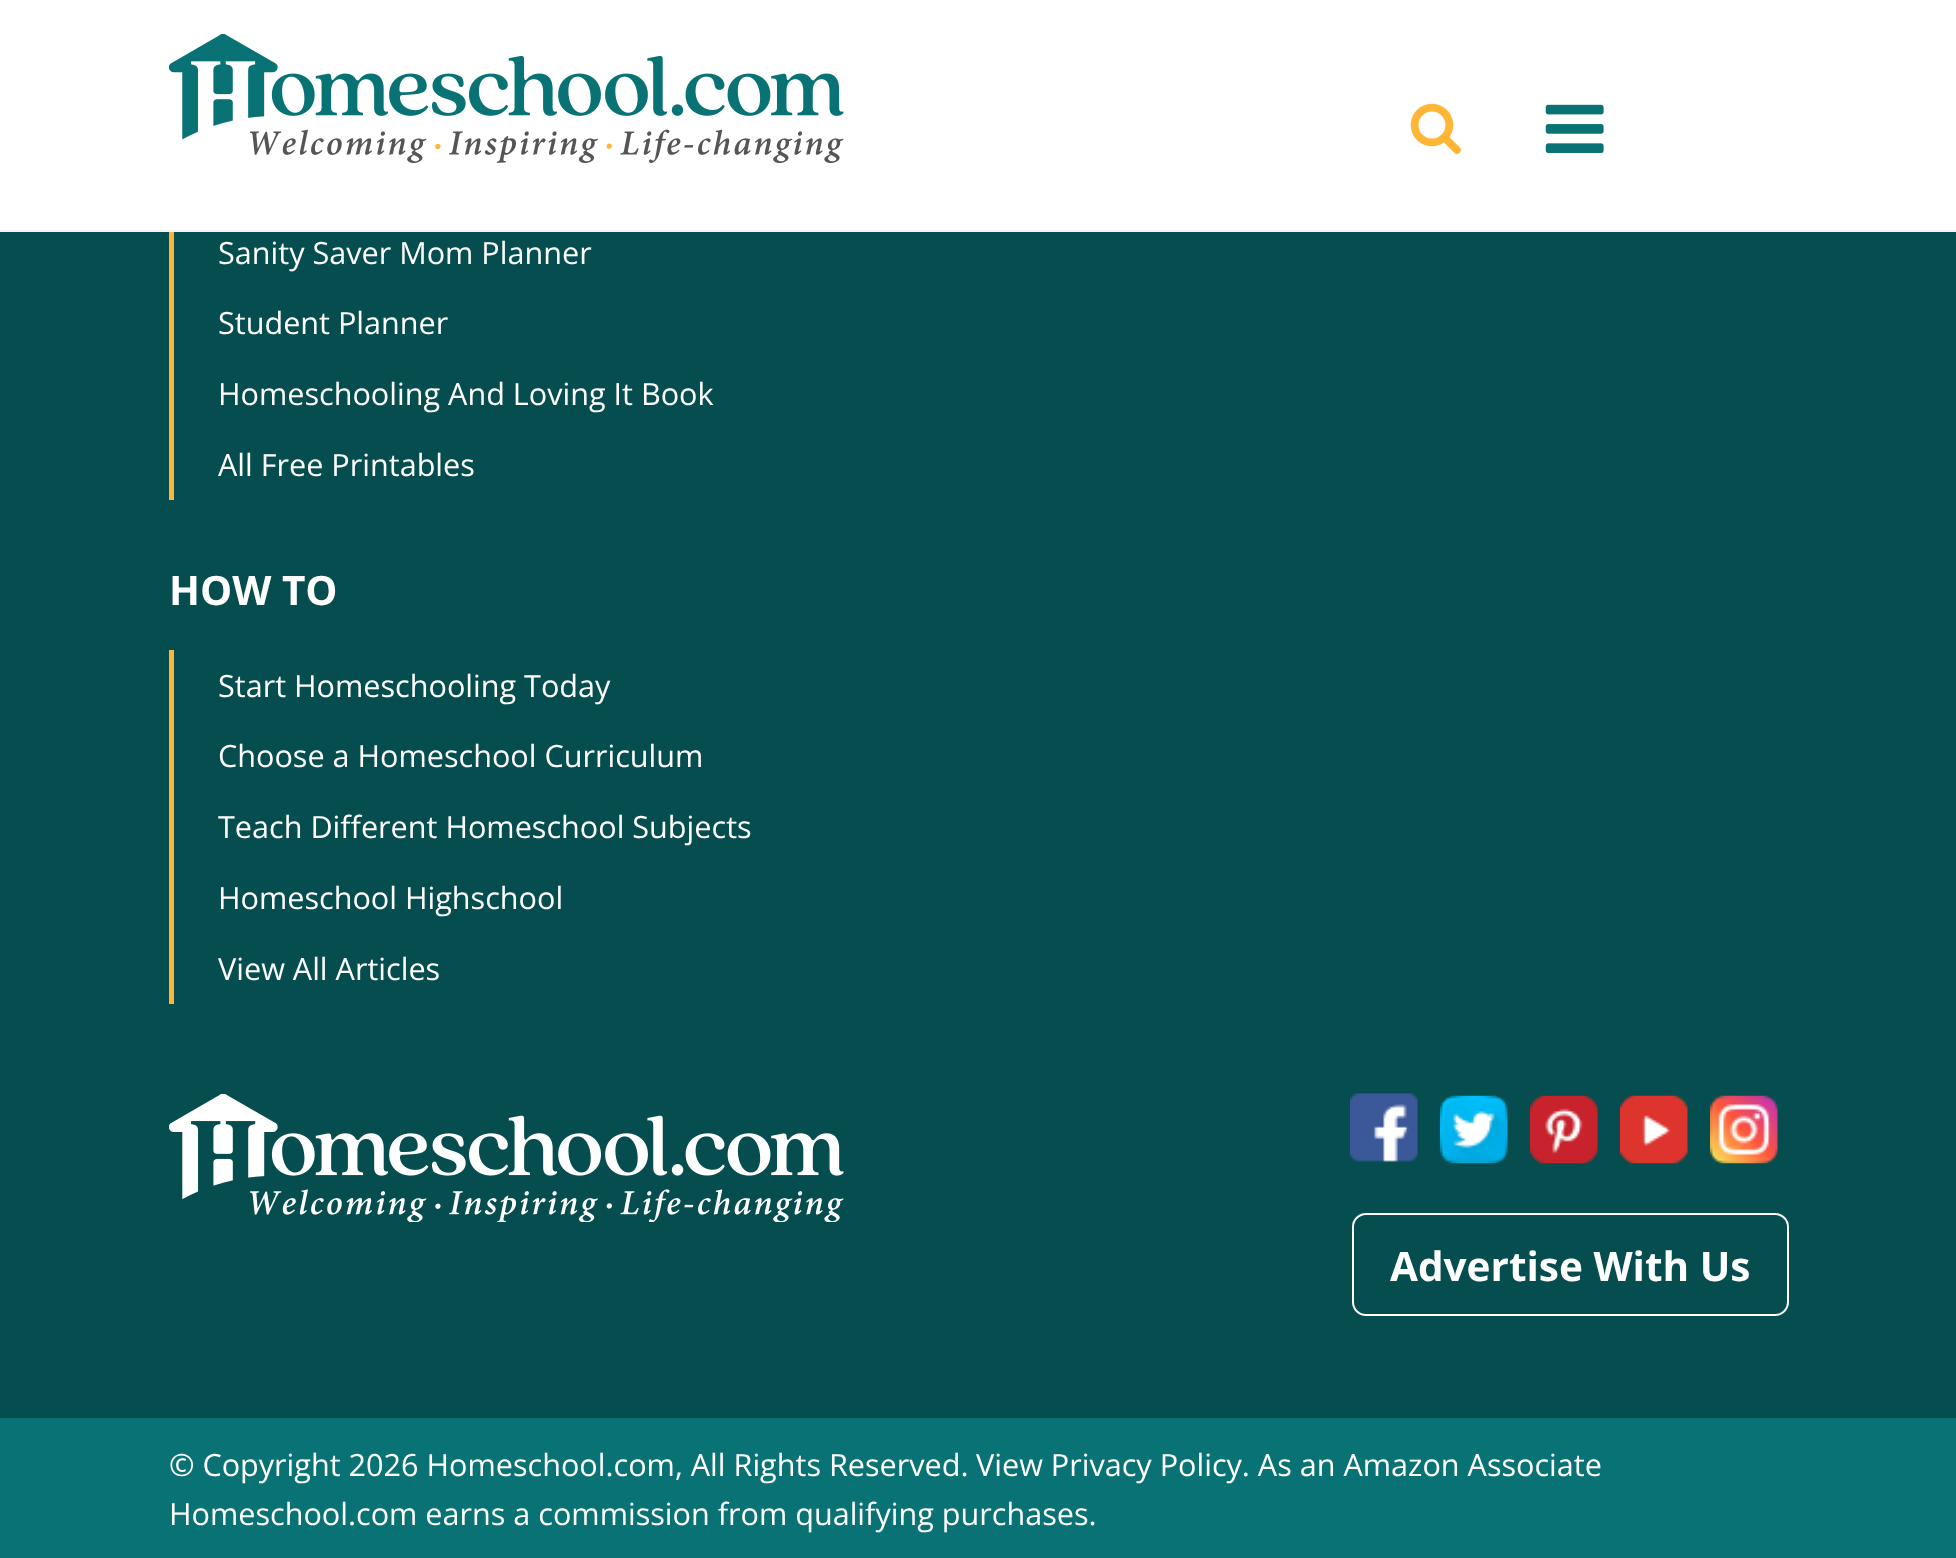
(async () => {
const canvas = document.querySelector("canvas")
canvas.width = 1956
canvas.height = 1558
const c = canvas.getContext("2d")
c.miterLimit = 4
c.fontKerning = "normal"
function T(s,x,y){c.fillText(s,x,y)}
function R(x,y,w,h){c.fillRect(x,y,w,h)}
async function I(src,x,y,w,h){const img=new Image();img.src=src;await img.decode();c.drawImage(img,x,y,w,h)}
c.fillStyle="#054d4e"
R(0,0,1956,1558)
c.fillStyle="#fff"
R(0,0,1956,230)
c.fillStyle="#f4f4f4"
R(0,230,1956,2)
await I("1.png",169,34,675,129)
await I("2.png",1410,103,51,51)
await I("3.png",1545,104,59,49)
c.fillStyle="#ffb637"
R(169,232,5,268)
c.font="30.6px Open Sans"
c.fillStyle="#fff"
T("Sanity Saver Mom Planner",218,264)
T("Student Planner",218,334)
T("Homeschooling And Loving It Book",218,405)
T("All Free Printables",218,476)
c.font="bold 40.5px Open Sans"
T("HOW TO",169,605)
c.fillStyle="#ffb637"
R(169,650,5,354)
c.font="30.6px Open Sans"
c.fillStyle="#fff"
T("Start Homeschooling Today",218,697)
T("Choose a Homeschool Curriculum",218,767)
T("Teach Different Homeschool Subjects",218,838)
T("Homeschool Highschool",218,909)
T("View All Articles",218,980)
await I("4.png",169,1094,675,128)
await I("5.png",1350,1093,68,69)
await I("6.png",1440,1095,68,69)
await I("7.png",1530,1095,68,69)
await I("8.png",1620,1095,68,69)
await I("9.png",1710,1095,68,69)
c.beginPath()
c.roundRect(1353,1214,435,101,13)
c.strokeStyle="#fff"
c.lineWidth=2
c.stroke()
c.font="bold 40.5px Open Sans"
T("Advertise With Us",1390,1281)
c.fillStyle="#097275"
R(0,1418,1956,140)
c.font="30.6px Open Sans"
c.fillStyle="#fff"
T("© Copyright 2026 Homeschool.com, All Rights Reserved.",169,1476)
T("View Privacy Policy. As an Amazon Associate",976,1476)
T("Homeschool.com earns a commission from qualifying purchases.",169,1525)
})()
